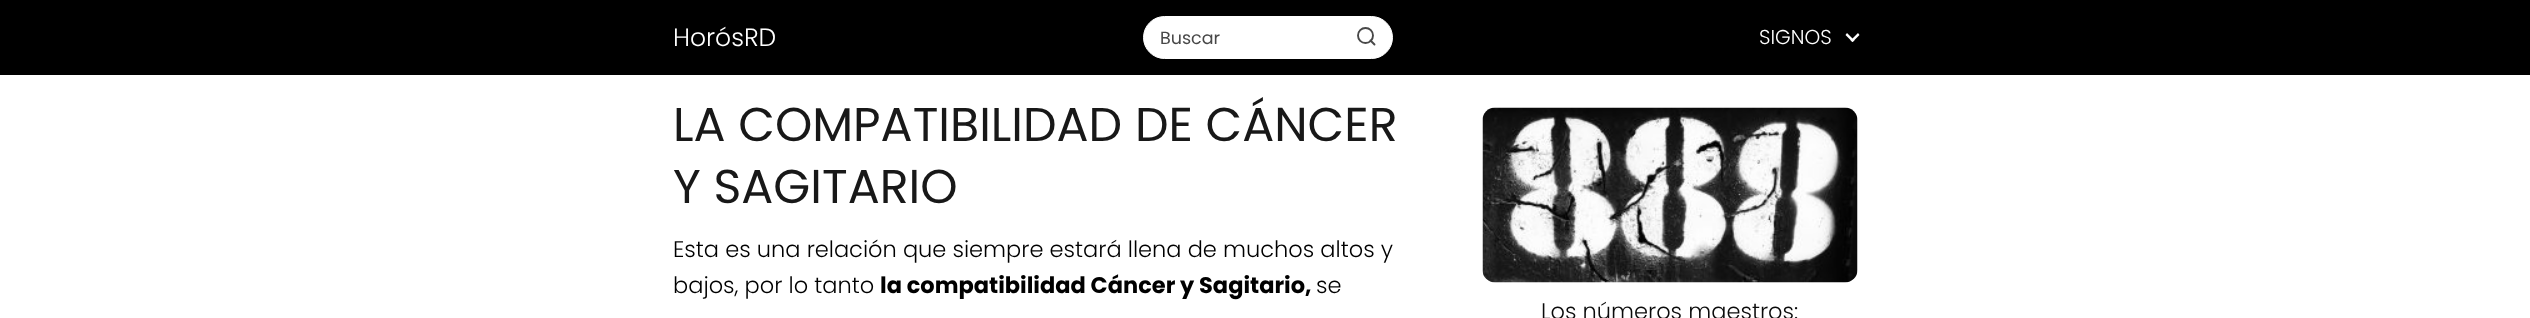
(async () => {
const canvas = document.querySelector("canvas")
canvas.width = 2530
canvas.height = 318
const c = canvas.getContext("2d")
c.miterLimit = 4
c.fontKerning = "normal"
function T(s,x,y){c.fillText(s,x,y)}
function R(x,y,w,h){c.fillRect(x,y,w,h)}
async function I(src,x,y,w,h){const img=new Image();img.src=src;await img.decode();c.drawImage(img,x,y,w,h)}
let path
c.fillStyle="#fff"
R(0,0,2530,318)
c.fillStyle="#000"
R(0,0,2530,75)
c.font="300 25px Poppins"
c.fillStyle="#fff"
T("HorósRD",673,46)
c.beginPath()
c.roundRect(1143.5,16.5,249,42,21)
c.fill()
c.strokeStyle="#fff"
c.stroke()
c.font="17.5px Poppins"
c.fillStyle="#484848"
T("Buscar",1160,44)
c.beginPath()
c.arc(1365.5,35.5,7.5,0,7)
c.strokeStyle="#484848"
c.lineWidth=1.9
c.stroke()
path = new Path2D("M1374.5 44.5l-4-4")
c.lineCap="round"
c.lineJoin="round"
c.stroke(path)
c.font="300 20px Poppins"
c.fillStyle="#fff"
T("SIGNOS",1759,44)
path = new Path2D("M1858 33l1.5 2l-7 7l-2-1.5z")
c.fill(path)
path = new Path2D("M1847 33l7.5 7.5l-2 1.5l-7-7z")
c.fill(path)
c.font="47.5px Poppins"
c.fillStyle="#181818"
T("LA COMPATIBILIDAD DE CÁNCER",673,141)
T("Y SAGITARIO",673,203)
c.font="300 22.5px Poppins"
c.fillStyle="#000"
T("Esta es una relación que siempre estará llena de muchos altos y",673,257)
T("bajos, por lo tanto",673,293)
c.font="bold 22.5px Poppins"
T("la compatibilidad Cáncer y Sagitario,",880,293)
c.font="300 22.5px Poppins"
T("se",1316,293)
await I("1.png",1482,107,376,176)
c.fillStyle="#0a0a0a"
T("Los números maestros:",1541,319)
})()
